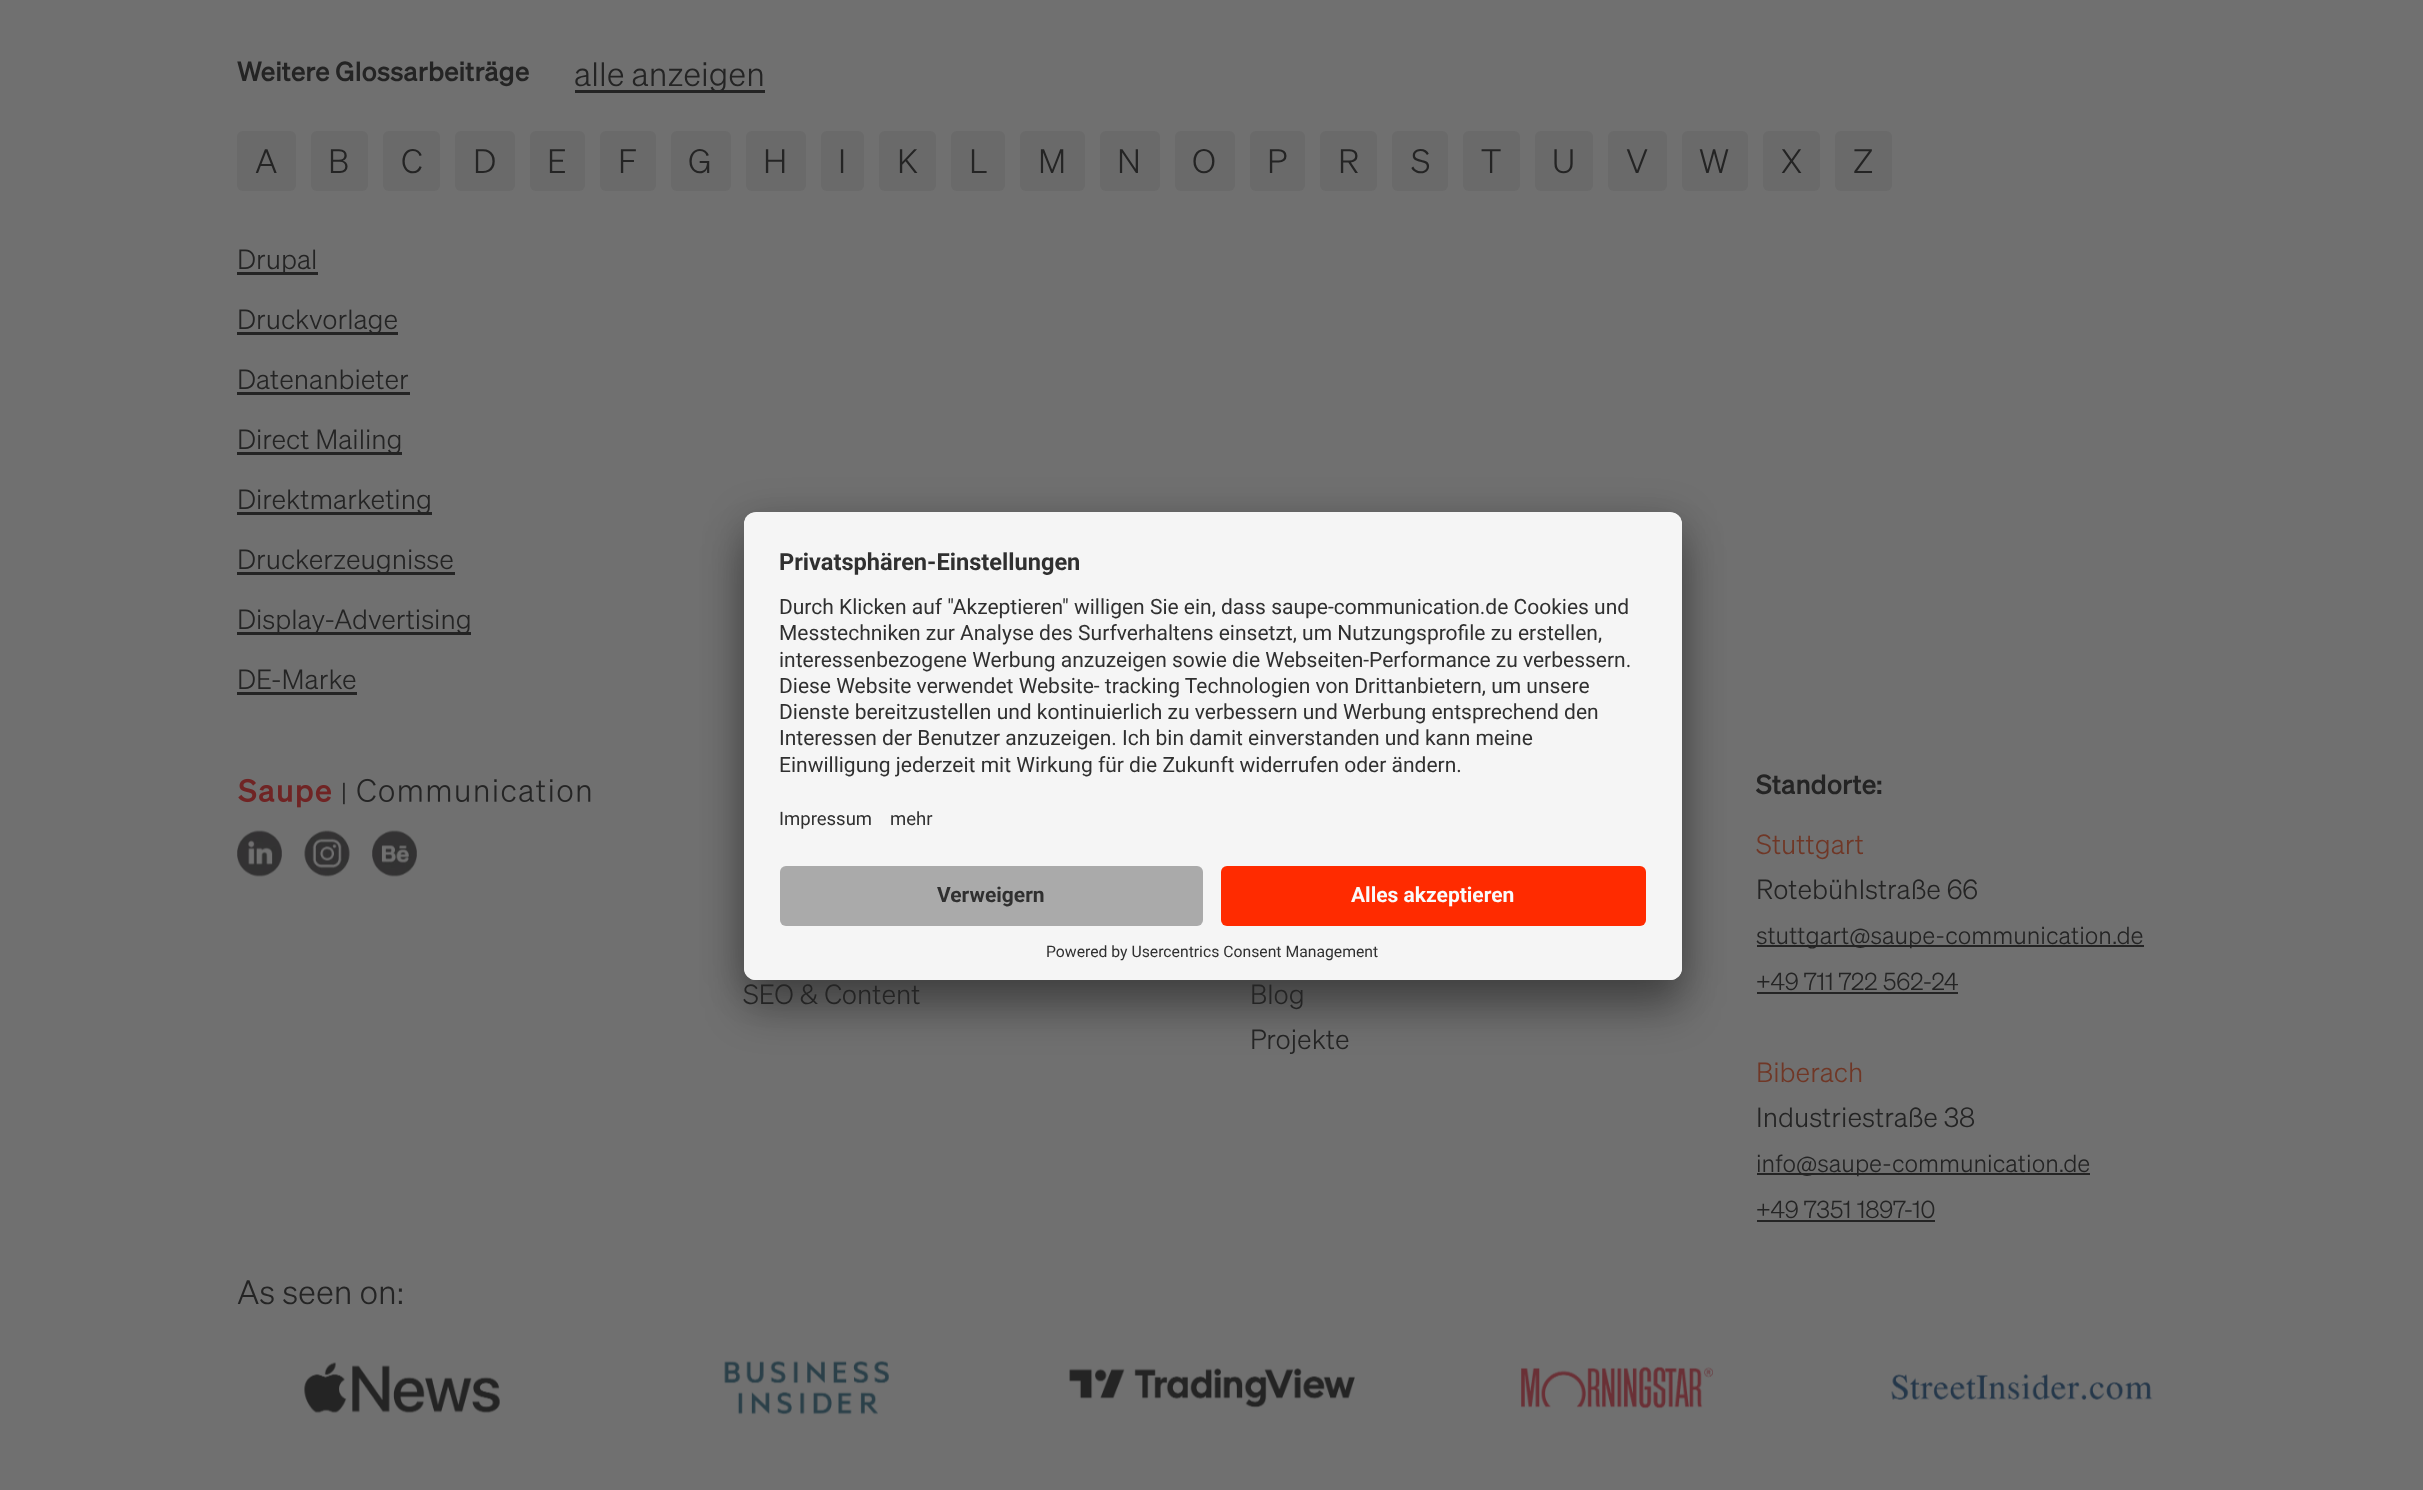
(async () => {
const canvas = document.querySelector("canvas")
canvas.width = 2423
canvas.height = 1490
const c = canvas.getContext("2d")
c.miterLimit = 4
c.fontKerning = "normal"
function T(s,x,y){c.fillText(s,x,y)}
function R(x,y,w,h){c.fillRect(x,y,w,h)}
function Q(x,y,w,h,r){c.beginPath();c.roundRect(x,y,w,h,r);c.fill()}
async function I(src,x,y,w,h){const img=new Image();img.src=src;await img.decode();c.drawImage(img,x,y,w,h)}
c.fillStyle="#707070"
R(0,0,2423,1490)
c.font="500 27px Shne"
c.fillStyle="#242424"
T("Weitere Glossarbeiträge",237,81)
R(575,90,190,3)
c.font="300 33px Shne"
T("alle anzeigen",574,86)
c.fillStyle="#6a6a6a"
Q(237,131,59,60,6)
c.fillStyle="#242424"
T("A",255,173)
c.fillStyle="#6a6a6a"
Q(311,131,57,60,6)
c.fillStyle="#242424"
T("B",328,173)
c.fillStyle="#6a6a6a"
Q(383,131,57,60,6)
c.fillStyle="#242424"
T("C",401,173)
c.fillStyle="#6a6a6a"
Q(455,131,60,60,6)
c.fillStyle="#242424"
T("D",473,173)
c.fillStyle="#6a6a6a"
Q(530,131,55,60,6)
c.fillStyle="#242424"
T("E",547,173)
c.fillStyle="#6a6a6a"
Q(600,131,56,60,6)
c.fillStyle="#242424"
T("F",618,173)
c.fillStyle="#6a6a6a"
Q(671,131,60,60,6)
c.fillStyle="#242424"
T("G",688,173)
c.fillStyle="#6a6a6a"
Q(746,131,60,60,6)
c.fillStyle="#242424"
T("H",763,173)
c.fillStyle="#6a6a6a"
Q(821,131,43,60,6)
c.fillStyle="#242424"
T("I",838,173)
c.fillStyle="#6a6a6a"
Q(879,131,57,60,6)
c.fillStyle="#242424"
T("K",897,173)
c.fillStyle="#6a6a6a"
Q(951,131,54,60,6)
c.fillStyle="#242424"
T("L",969,173)
c.fillStyle="#6a6a6a"
Q(1020,131,65,60,6)
c.fillStyle="#242424"
T("M",1038,173)
c.fillStyle="#6a6a6a"
Q(1100,131,60,60,6)
c.fillStyle="#242424"
T("N",1117,173)
c.fillStyle="#6a6a6a"
Q(1175,131,60,60,6)
c.fillStyle="#242424"
T("O",1192,173)
c.fillStyle="#6a6a6a"
Q(1250,131,55,60,6)
c.fillStyle="#242424"
T("P",1267,173)
c.fillStyle="#6a6a6a"
Q(1320,131,57,60,6)
c.fillStyle="#242424"
T("R",1338,173)
c.fillStyle="#6a6a6a"
Q(1392,131,56,60,6)
c.fillStyle="#242424"
T("S",1411,173)
c.fillStyle="#6a6a6a"
Q(1463,131,57,60,6)
c.fillStyle="#242424"
T("T",1481,173)
c.fillStyle="#6a6a6a"
Q(1535,131,58,60,6)
c.fillStyle="#242424"
T("U",1552,173)
c.fillStyle="#6a6a6a"
Q(1608,131,59,60,6)
c.fillStyle="#242424"
T("V",1626,173)
c.fillStyle="#6a6a6a"
Q(1682,131,66,60,6)
c.fillStyle="#242424"
T("W",1699,173)
c.fillStyle="#6a6a6a"
Q(1763,131,57,60,6)
c.fillStyle="#242424"
T("X",1781,173)
c.fillStyle="#6a6a6a"
Q(1835,131,57,60,6)
c.fillStyle="#242424"
T("Z",1853,173)
R(237,272,81,3)
c.font="300 27px Shne"
T("Drupal",237,269)
R(237,332,161,3)
T("Druckvorlage",237,329)
T("Datenanbieter",237,389)
R(237,392,173,3)
R(237,452,165,3)
T("Direct Mailing",237,449)
R(237,512,195,3)
T("Direktmarketing",237,509)
R(237,572,218,3)
T("Druckerzeugnisse",237,569)
R(237,632,234,3)
T("Display-Advertising",237,629)
T("DE-Marke",237,689)
R(237,692,120,3)
c.fillStyle="#0000004d"
c.filter="blur(21px)"
c.beginPath()
c.roundRect(744,542,938,468,12)
c.fill()
c.filter="none"
c.fillStyle="#00000038"
c.filter="blur(19.5px)"
c.beginPath()
c.roundRect(744,519,938,468,12)
c.fill()
c.filter="none"
c.fillStyle="#f5f5f5"
Q(744,512,938,468,12)
c.save()
c.beginPath()
c.roundRect(744,512,938,468,12)
c.clip()
c.beginPath()
c.roundRect(744,512,938,342,[12,12,0,0])
c.clip()
R(744,513,938,341)
c.restore()
c.font="bold 23.6px Roboto"
c.fillStyle="#303030"
T("Privatsphären-Einstellungen",779,570)
c.font="21px Roboto"
T("Durch Klicken auf \"Akzeptieren\" willigen Sie ein, dass saupe-communication.de Cookies und",779,614)
T("Messtechniken zur Analyse des Surfverhaltens einsetzt, um Nutzungsprofile zu erstellen,",779,640)
T("interessenbezogene Werbung anzuzeigen sowie die Webseiten-Performance zu verbessern.",779,667)
T("Diese Website verwendet Website- tracking Technologien von Drittanbietern, um unsere",779,693)
T("Dienste bereitzustellen und kontinuierlich zu verbessern und Werbung entsprechend den",779,719)
T("Interessen der Benutzer anzuzeigen. Ich bin damit einverstanden und kann meine",779,745)
T("Einwilligung jederzeit mit Wirkung für die Zukunft widerrufen oder ändern.",779,772)
c.font="18.5px Roboto"
T("Impressum",779,825)
T("mehr",890,825)
c.fillStyle="#f5f5f5"
c.beginPath()
c.roundRect(744,854,938,126,[0,0,12,12])
c.fill()
c.fillStyle="#aaa"
Q(780,866,423,60,6)
c.font="bold 21px Roboto"
c.fillStyle="#303030"
T("Verweigern",937,902)
c.fillStyle="#ff2b00"
Q(1221,866,425,60,6)
c.fillStyle="#fafafa"
T("Alles akzeptieren",1351,902)
c.font="15.75px Roboto"
c.fillStyle="#303030"
T("Powered by Usercentrics Consent Management",1046,957)
await I("1.png",238,778,353,30)
await I("2.png",237,830,45,47)
await I("3.png",304,830,46,47)
await I("4.png",372,830,45,47)
c.font="500 27px Shne"
c.fillStyle="#242424"
T("Standorte:",1756,794)
c.font="300 27px Shne"
c.fillStyle="#703726"
T("Stuttgart",1756,854)
c.fillStyle="#242424"
T("Rotebühlstraße 66",1756,899)
R(1757,945,387,2)
c.font="300 24px Shne"
T("stuttgart@saupe-communication.de",1756,944)
T("+49 711 722 562-24",1756,990)
R(1757,992,201,2)
c.font="300 27px Shne"
c.fillStyle="#703726"
T("Biberach",1756,1082)
c.fillStyle="#242424"
T("Industriestraße 38",1756,1127)
R(1757,1173,333,2)
c.font="300 24px Shne"
T("info@saupe-communication.de",1756,1172)
T("+49 7351 1897-10",1756,1218)
R(1757,1220,178,2)
c.font="300 27px Shne"
T("SEO & Content",743,1004)
T("Blog",1250,1004)
T("Projekte",1250,1049)
c.font="300 33px Shne"
T("As seen on:",237,1304)
await I("5.png",304,1362,196,52)
await I("6.png",724,1360,165,55)
await I("7.png",1069,1368,286,40)
await I("8.png",1521,1366,192,43)
await I("9.png",1891,1374,262,26)
})()
